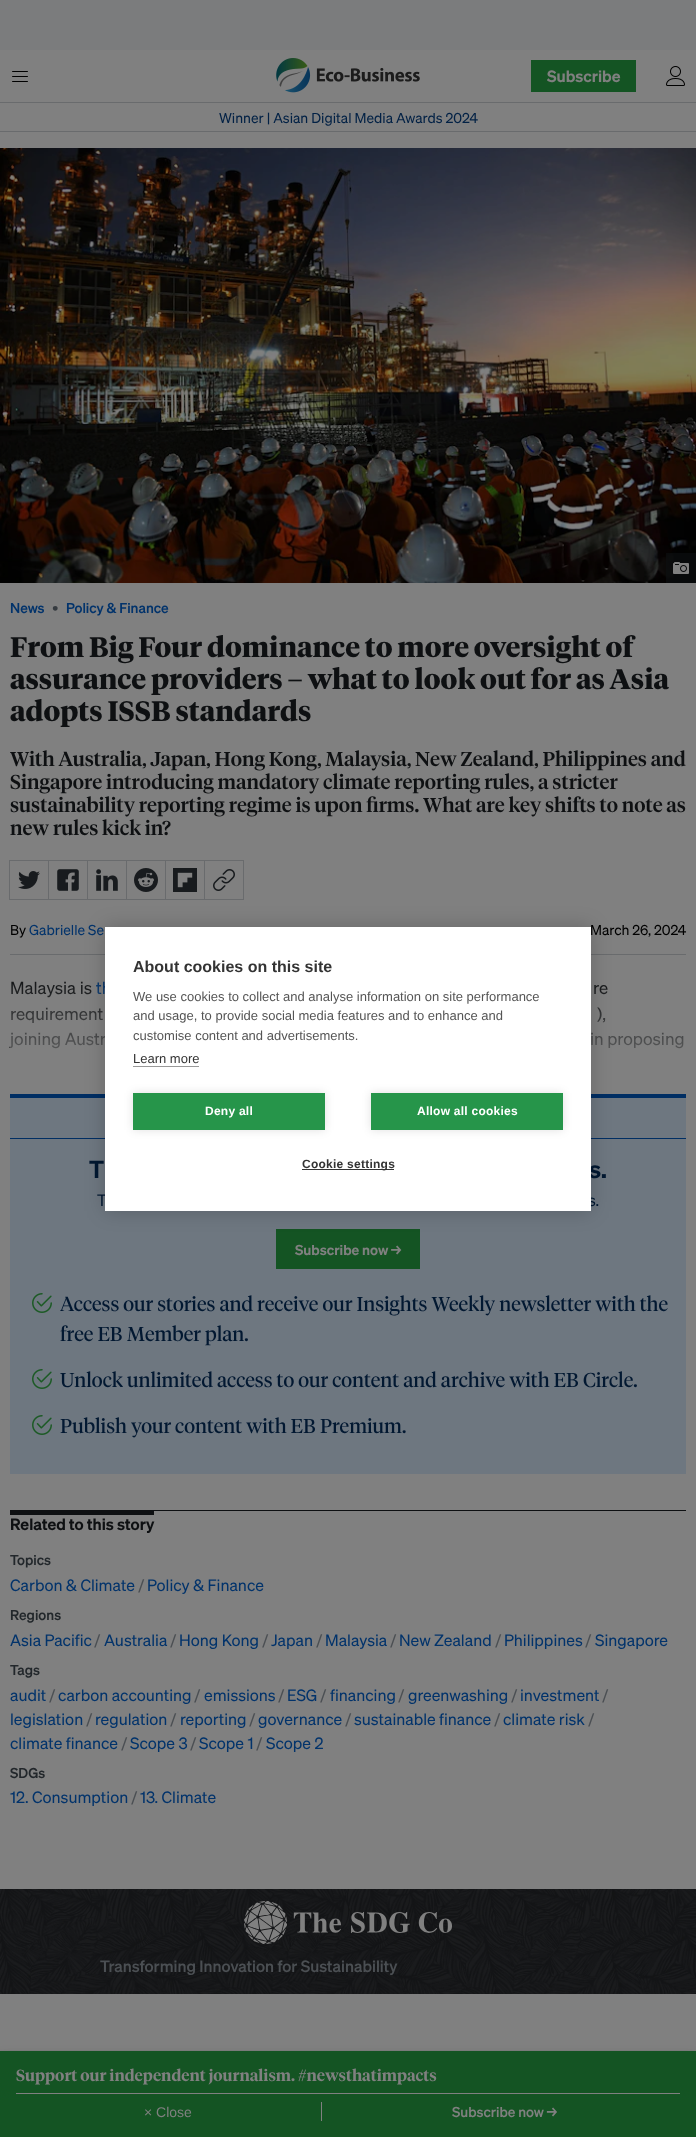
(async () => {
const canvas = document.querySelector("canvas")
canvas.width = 696
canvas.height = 2137
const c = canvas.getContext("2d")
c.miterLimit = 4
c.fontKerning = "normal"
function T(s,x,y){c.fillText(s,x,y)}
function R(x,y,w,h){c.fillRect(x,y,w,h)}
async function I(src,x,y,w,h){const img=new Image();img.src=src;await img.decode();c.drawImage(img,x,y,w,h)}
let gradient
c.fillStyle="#808080"
R(0,0,696,2137)
c.fillStyle="#7b7c7d"
R(0,0,696,50)
c.fillStyle="#696b6d"
R(0,102,696,1)
await I("1.png",12,71,16,11)
await I("2.png",276,58,144,35)
c.fillStyle="#145423"
R(531,60,105,32)
c.font="600 16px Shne"
c.fillStyle="#808080"
T("Subscribe",547,82)
await I("3.png",666,66,19,20)
c.fillStyle="#696b6d"
R(0,131,696,1)
c.font="14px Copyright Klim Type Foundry"
c.fillStyle="#022145"
T("Winner | Asian Digital Media Awards 2024",219,123)
await I("4.png",0,148,696,435)
c.fillStyle="#0e101299"
R(666,553,30,30)
await I("5.png",673,562,16,12)
c.font="500 14px Shne"
c.fillStyle="#02336b"
T("News",10,613)
c.font="16px Copyright Klim Type Foundry"
c.fillStyle="#353a3f"
T("•",52,613)
c.font="500 14px Shne"
c.fillStyle="#02336b"
T("Policy & Finance",66,613)
c.font="bold 28px Copyright Klim Type Foundry"
c.fillStyle="#0e1012"
T("From Big Four dominance to more oversight of",10,657)
T("assurance providers – what to look out for as Asia",10,689)
T("adopts ISSB standards",10,721)
c.font="500 20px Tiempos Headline"
T("With Australia, Japan, Hong Kong, Malaysia, New Zealand, Philippines and",10,766)
T("Singapore introducing mandatory climate reporting rules, a stricter",10,789)
T("sustainability reporting regime is upon firms. What are key shifts to note as",10,812)
T("new rules kick in?",10,835)
c.strokeStyle="#696b6d"
c.strokeRect(9.5,860.5,39,39)
await I("6.png",18,871,22,18)
c.strokeRect(48.5,860.5,39,39)
await I("7.png",57,869,22,22)
c.strokeRect(87.5,860.5,39,39)
await I("8.png",96,869,22,22)
c.strokeRect(126.5,860.5,39,39)
await I("9.png",134,868,24,24)
c.strokeRect(165.5,860.5,39,39)
await I("10.png",173,868,24,24)
c.strokeRect(204.5,860.5,39,39)
await I("11.png",213,869,22,22)
c.fillStyle="#696b6d"
R(10,954,676,1)
c.font="14px Copyright Klim Type Foundry"
c.fillStyle="#000"
T("By",10,935)
c.fillStyle="#02336b"
T("Gabrielle Se",29,935)
c.fillStyle="#000"
T("March 26, 2024",590,935)
c.font="17px Copyright Klim Type Foundry"
c.fillStyle="#0e1012"
T("Malaysia is",10,994)
c.fillStyle="#02336b"
T("th",96,994)
c.fillStyle="#0e1012"
T("re",593,994)
T("requirement",10,1020)
T("),",597,1020)
T("joining Austr",10,1045)
T("in proposing",590,1045)
gradient = c.createLinearGradient(348,1094,348,975)
gradient.addColorStop(0,"#808080")
gradient.addColorStop(1,"#80808000")
c.fillStyle = gradient
R(10,982,674,67)
c.fillStyle="#6e7780"
R(10,1098,676,376)
c.fillStyle="#002e63"
R(10,1094,676,4)
R(10,1138,676,1)
c.wordSpacing="-1px"
c.font="600 24px Shne"
c.fillStyle="#021831"
T("T",89,1178)
T("s.",589,1178)
c.wordSpacing="0px"
c.font="16px Copyright Klim Type Foundry"
T("T",97,1206)
T("s.",588,1206)
c.fillStyle="#145423"
R(276,1229,144,40)
c.font="600 14px Shne"
c.fillStyle="#808080"
T("Subscribe now →",295,1255)
await I("12.png",32,1293,20,20)
c.font="20px Tiempos Headline"
c.fillStyle="#021831"
T("Access our stories and receive our Insights Weekly newsletter with the",60,1311)
T("free EB Member plan.",60,1341)
await I("12.png",32,1369,20,20)
T("Unlock unlimited access to our content and archive with EB Circle.",60,1387)
await I("12.png",32,1415,20,20)
T("Publish your content with EB Premium.",60,1433)
c.fillStyle="#0e1012"
R(10,1510,676,1)
R(10,1511,144,4)
c.font="600 16px Shne"
T("Related to this story",10,1530)
c.font="500 14px Shne"
c.fillStyle="#22272b"
T("Topics",10,1565)
c.font="16px Copyright Klim Type Foundry"
c.fillStyle="#02336b"
T("Carbon & Climate",10,1591)
c.fillStyle="#4b4f53"
T("/",138,1591)
c.fillStyle="#02336b"
T("Policy & Finance",147,1591)
c.font="500 14px Shne"
c.fillStyle="#22272b"
T("Regions",10,1620)
c.font="16px Copyright Klim Type Foundry"
c.fillStyle="#02336b"
T("Asia Pacific",10,1646)
c.fillStyle="#4b4f53"
T("/",94,1646)
c.fillStyle="#02336b"
T("Australia",104,1646)
c.fillStyle="#4b4f53"
T("/",170,1646)
c.fillStyle="#02336b"
T("Hong Kong",179,1646)
c.fillStyle="#4b4f53"
T("/",262,1646)
c.fillStyle="#02336b"
T("Japan",271,1646)
c.fillStyle="#4b4f53"
T("/",316,1646)
c.fillStyle="#02336b"
T("Malaysia",325,1646)
c.fillStyle="#4b4f53"
T("/",390,1646)
c.fillStyle="#02336b"
T("New Zealand",399,1646)
c.fillStyle="#4b4f53"
T("/",495,1646)
c.fillStyle="#02336b"
T("Philippines",504,1646)
c.fillStyle="#4b4f53"
T("/",585,1646)
c.fillStyle="#02336b"
T("Singapore",595,1646)
c.font="500 14px Shne"
c.fillStyle="#22272b"
T("Tags",10,1675)
c.font="16px Copyright Klim Type Foundry"
c.fillStyle="#02336b"
T("audit",10,1701)
c.fillStyle="#4b4f53"
T("/",49,1701)
c.fillStyle="#02336b"
T("carbon accounting",58,1701)
c.fillStyle="#4b4f53"
T("/",194,1701)
c.fillStyle="#02336b"
T("emissions",204,1701)
c.fillStyle="#4b4f53"
T("/",278,1701)
c.fillStyle="#02336b"
T("ESG",287,1701)
c.fillStyle="#4b4f53"
T("/",320,1701)
c.fillStyle="#02336b"
T("financing",330,1701)
c.fillStyle="#4b4f53"
T("/",398,1701)
c.fillStyle="#02336b"
T("greenwashing",408,1701)
c.fillStyle="#4b4f53"
T("/",511,1701)
c.fillStyle="#02336b"
T("investment",520,1701)
c.fillStyle="#4b4f53"
T("/",602,1701)
c.fillStyle="#02336b"
T("legislation",10,1725)
c.fillStyle="#4b4f53"
T("/",86,1725)
c.fillStyle="#02336b"
T("regulation",95,1725)
c.fillStyle="#4b4f53"
T("/",170,1725)
c.fillStyle="#02336b"
T("reporting",180,1725)
c.fillStyle="#4b4f53"
T("/",249,1725)
c.fillStyle="#02336b"
T("governance",258,1725)
c.fillStyle="#4b4f53"
T("/",345,1725)
c.fillStyle="#02336b"
T("sustainable finance",354,1725)
c.fillStyle="#4b4f53"
T("/",494,1725)
c.fillStyle="#02336b"
T("climate risk",503,1725)
c.fillStyle="#4b4f53"
T("/",588,1725)
c.fillStyle="#02336b"
T("climate finance",10,1749)
c.fillStyle="#4b4f53"
T("/",121,1749)
c.fillStyle="#02336b"
T("Scope 3",130,1749)
c.fillStyle="#4b4f53"
T("/",190,1749)
c.fillStyle="#02336b"
T("Scope 1",199,1749)
c.fillStyle="#4b4f53"
T("/",256,1749)
c.fillStyle="#02336b"
T("Scope 2",266,1749)
c.font="500 14px Shne"
c.fillStyle="#22272b"
T("SDGs",10,1778)
c.font="16px Copyright Klim Type Foundry"
c.fillStyle="#02336b"
T("12. Consumption",10,1803)
c.fillStyle="#4b4f53"
T("/",131,1803)
c.fillStyle="#02336b"
T("13. Climate",140,1803)
c.fillStyle="#181b1f"
R(0,1889,696,105)
await I("13.png",0,1889,696,105)
await I("14.png",244,1901,208,43)
c.font="500 16px Shne"
c.fillStyle="#4b4f53"
T("Transforming Innovation for Sustainability",100,1972)
c.fillStyle="#00000033"
c.filter="blur(10px)"
c.beginPath()
c.rect(105,927,486,284)
c.fill()
c.filter="none"
c.fillStyle="#fff"
R(105,927,486,284)
c.font="bold 16px Liberation Sans"
c.fillStyle="#333"
T("About cookies on this site",133,972)
c.font="13px Liberation Sans"
c.fillStyle="#555"
T("We use cookies to collect and analyse information on site performance",133,1001)
T("and usage, to provide social media features and to enhance and",133,1020)
T("customise content and advertisements.",133,1040)
c.fillStyle="#333"
T("Learn more",133,1063)
c.fillStyle="#999"
R(133,1066,66,1)
c.fillStyle="#0000001f"
c.filter="blur(5px)"
c.beginPath()
c.rect(133,1093,192,37)
c.fill()
c.filter="none"
c.fillStyle="#26954a"
R(133,1093,192,37)
c.letterSpacing="0.25px"
c.font="bold 12px Liberation Sans"
c.fillStyle="#fff"
T("Deny all",205,1115)
c.fillStyle="#0000001f"
c.filter="blur(5px)"
c.beginPath()
c.rect(371,1093,192,37)
c.fill()
c.filter="none"
c.fillStyle="#26954a"
R(371,1093,192,37)
c.fillStyle="#fff"
T("Allow all cookies",417,1115)
c.fillStyle="#333"
R(302,1169,92,1)
T("Cookie settings",302,1168)
c.fillStyle="#27242333"
c.filter="blur(7px)"
c.beginPath()
c.rect(0,2059,696,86)
c.fill()
c.filter="none"
c.fillStyle="#27242326"
c.filter="blur(2px)"
c.beginPath()
c.rect(0,2052,696,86)
c.fill()
c.filter="none"
c.fillStyle="#145423"
R(0,2051,696,86)
c.letterSpacing="0px"
c.font="600 16px Tiempos Headline"
c.fillStyle="#808080"
T("Support our independent journalism. #newsthatimpacts",16,2081)
R(16,2093,664,1)
c.font="14px Liberation Sans"
T("× Close",144,2117)
R(321,2102,1,19)
c.font="500 14px Shne"
T("Subscribe now →",452,2117)
})()
